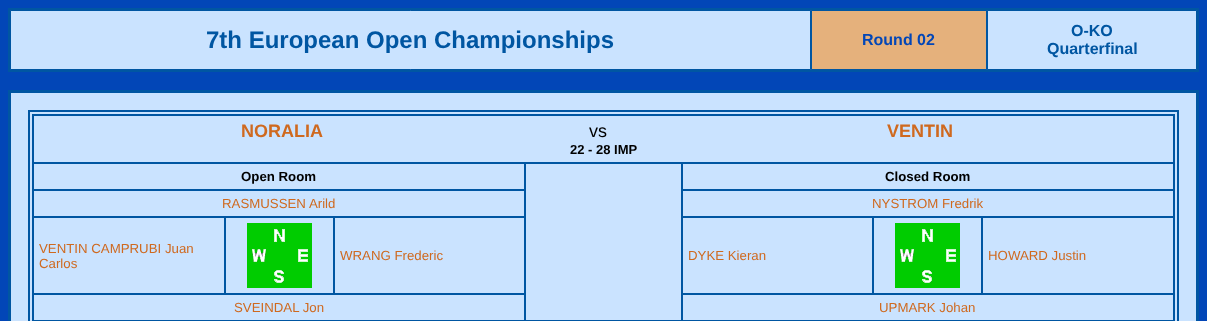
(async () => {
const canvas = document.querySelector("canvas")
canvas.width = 1207
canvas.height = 321
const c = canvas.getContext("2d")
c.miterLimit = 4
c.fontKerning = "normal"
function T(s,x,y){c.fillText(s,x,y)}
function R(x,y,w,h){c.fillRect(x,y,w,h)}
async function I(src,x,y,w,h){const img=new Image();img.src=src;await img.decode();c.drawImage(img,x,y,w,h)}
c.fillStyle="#0246b7"
R(0,0,1207,321)
c.strokeStyle="#0056a2"
c.lineWidth=2
c.strokeRect(9,9,1189,62)
c.fillStyle="#cae3ff"
c.beginPath()
c.rect(10.5,10.5,800,59)
c.fill()
c.lineWidth=1
c.stroke()
c.font="bold 24px Liberation Sans"
c.fillStyle="#0056a2"
T("7th European Open Championships",206,48)
c.fillStyle="#e5b17c"
c.beginPath()
c.rect(811.5,10.5,175,59)
c.fill()
c.stroke()
c.font="bold 16px Liberation Sans"
c.fillStyle="#0246b7"
T("Round 02",862,45)
c.fillStyle="#cae3ff"
c.beginPath()
c.rect(987.5,10.5,209,59)
c.fill()
c.stroke()
c.fillStyle="#0056a2"
T("O-KO",1071,36)
T("Quarterfinal",1047,54)
c.fillStyle="#cae3ff"
R(11,93,1185,228)
c.lineWidth=2
c.strokeRect(9,91,1189,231)
c.lineWidth=1
c.strokeRect(10.5,92.5,1186,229)
c.strokeRect(28.5,110.5,1150,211)
c.strokeRect(29.5,111.5,1148,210)
c.strokeRect(32.5,114.5,1142,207)
c.strokeRect(33.5,115.5,1140,47)
c.font="bold 18px Liberation Sans"
c.fillStyle="#cf691f"
T("NORALIA",241,137)
c.font="18px Liberation Sans"
c.fillStyle="#000"
T("vs",589,137)
c.font="bold 18px Liberation Sans"
c.fillStyle="#cf691f"
T("VENTIN",887,137)
c.font="bold 13px Liberation Sans"
c.fillStyle="#000"
T("22 - 28 IMP",570,154)
c.strokeRect(33.5,163.5,491,26)
c.font="bold 13.25px Liberation Sans"
T("Open Room",241,181)
c.strokeRect(525.5,163.5,156,157)
c.strokeRect(682.5,163.5,491,26)
T("Closed Room",885,181)
c.strokeRect(33.5,190.5,491,26)
c.font="13.25px Liberation Sans"
c.fillStyle="#cf691f"
T("RASMUSSEN Arild",222,208)
c.strokeRect(682.5,190.5,491,26)
T("NYSTROM Fredrik",872,208)
c.strokeRect(33.5,217.5,191,76)
T("VENTIN CAMPRUBI Juan",39,253)
T("Carlos",39,268)
c.strokeRect(225.5,217.5,108,76)
await I("1.png",247,223,65,65)
c.strokeRect(334.5,217.5,190,76)
T("WRANG Frederic",340,260)
c.strokeRect(682.5,217.5,190,76)
T("DYKE Kieran",688,260)
c.strokeRect(873.5,217.5,108,76)
await I("1.png",895,223,65,65)
c.strokeRect(982.5,217.5,191,76)
T("HOWARD Justin",988,260)
c.strokeRect(33.5,294.5,491,26)
T("SVEINDAL Jon",234,312)
c.strokeRect(682.5,294.5,491,26)
T("UPMARK Johan",879,312)
})()
